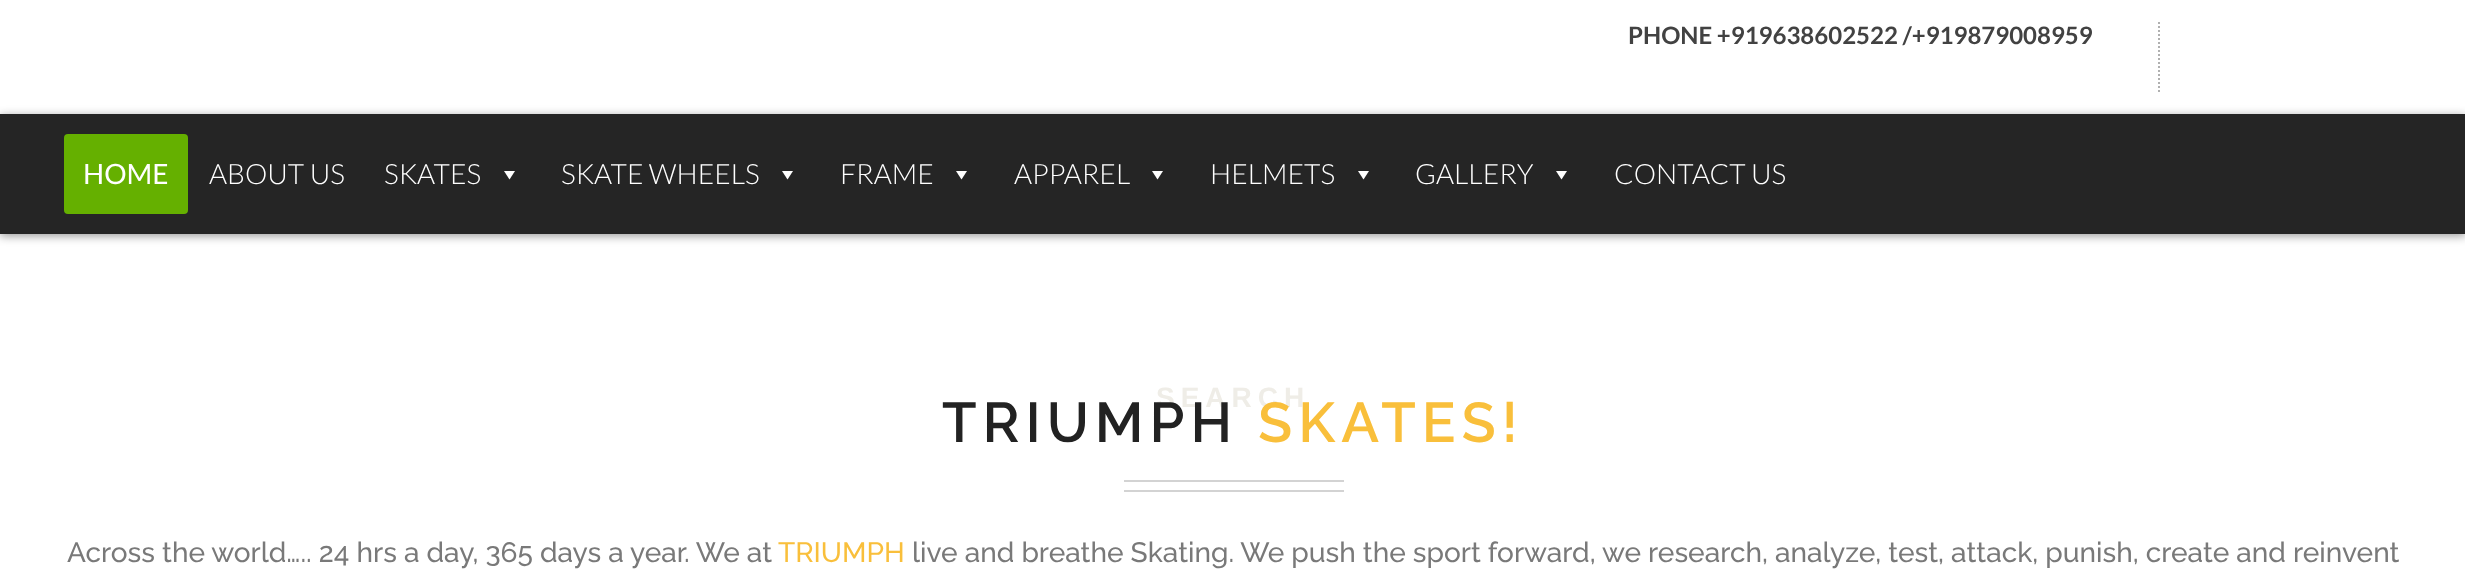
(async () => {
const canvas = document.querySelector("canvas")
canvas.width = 2465
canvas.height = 581
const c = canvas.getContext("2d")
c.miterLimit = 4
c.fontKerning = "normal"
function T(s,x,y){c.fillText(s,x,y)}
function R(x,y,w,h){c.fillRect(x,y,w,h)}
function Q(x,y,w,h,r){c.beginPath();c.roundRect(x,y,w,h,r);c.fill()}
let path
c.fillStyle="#fff"
R(0,0,2465,581)
c.font="bold 24px Lato"
c.fillStyle="#424242"
T("PHONE +919638602522 /+919879008959",1628,44)
path = new Path2D("M2159 22v70")
c.strokeStyle="#b0b0b0"
c.lineWidth=2
c.setLineDash([2,2])
c.stroke(path)
c.fillStyle="#00000066"
c.filter="blur(5px)"
c.beginPath()
c.rect(0,116,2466,120)
c.fill()
c.filter="none"
c.fillStyle="#252525"
R(0,114,2465,120)
c.fillStyle="#65b000"
Q(64,134,124,80,4)
c.font="28px Lato"
c.fillStyle="#fff"
T("HOME",83,184)
c.font="300 28px Lato"
T("ABOUT US",209,184)
T("SKATES",384,184)
path = new Path2D("M515 171l-5.5 8.5l-5.5-8.5z")
c.fill(path)
T("SKATE WHEELS",561,184)
path = new Path2D("M793 171l-5.5 8.5l-5.5-8.5z")
c.fill(path)
T("FRAME",840,184)
path = new Path2D("M967 171l-5.5 8.5l-5.5-8.5z")
c.fill(path)
T("APPAREL",1014,184)
path = new Path2D("M1163 171l-5.5 8.5l-5.5-8.5z")
c.fill(path)
T("HELMETS",1210,184)
path = new Path2D("M1369 171l-5.5 8.5l-5.5-8.5z")
c.fill(path)
T("GALLERY",1415,184)
path = new Path2D("M1567 171l-5.5 8.5l-5.5-8.5z")
c.fill(path)
T("CONTACT US",1614,184)
c.letterSpacing="6px"
c.font="bold 28px Liberation Sans"
c.fillStyle="#efede7"
T("SEARCH",1156,407)
c.font="600 56px Raleway"
c.fillStyle="#222"
T("TRIUMPH",942,442)
c.fillStyle="#f9bf3b"
T("SKATES!",1258,442)
c.fillStyle="#d3d3d3"
R(1124,480,220,2)
R(1124,490,220,2)
c.letterSpacing="0px"
c.font="500 28px Raleway"
c.fillStyle="#797979"
T("Across the world….. 24 hrs a day, 365 days a year. We at",67,562)
c.fillStyle="#f9bf3b"
T("TRIUMPH",778,562)
c.fillStyle="#797979"
T("live and breathe Skating. We push the sport forward, we research, analyze, test, attack, punish, create and reinvent",912,562)
})()
